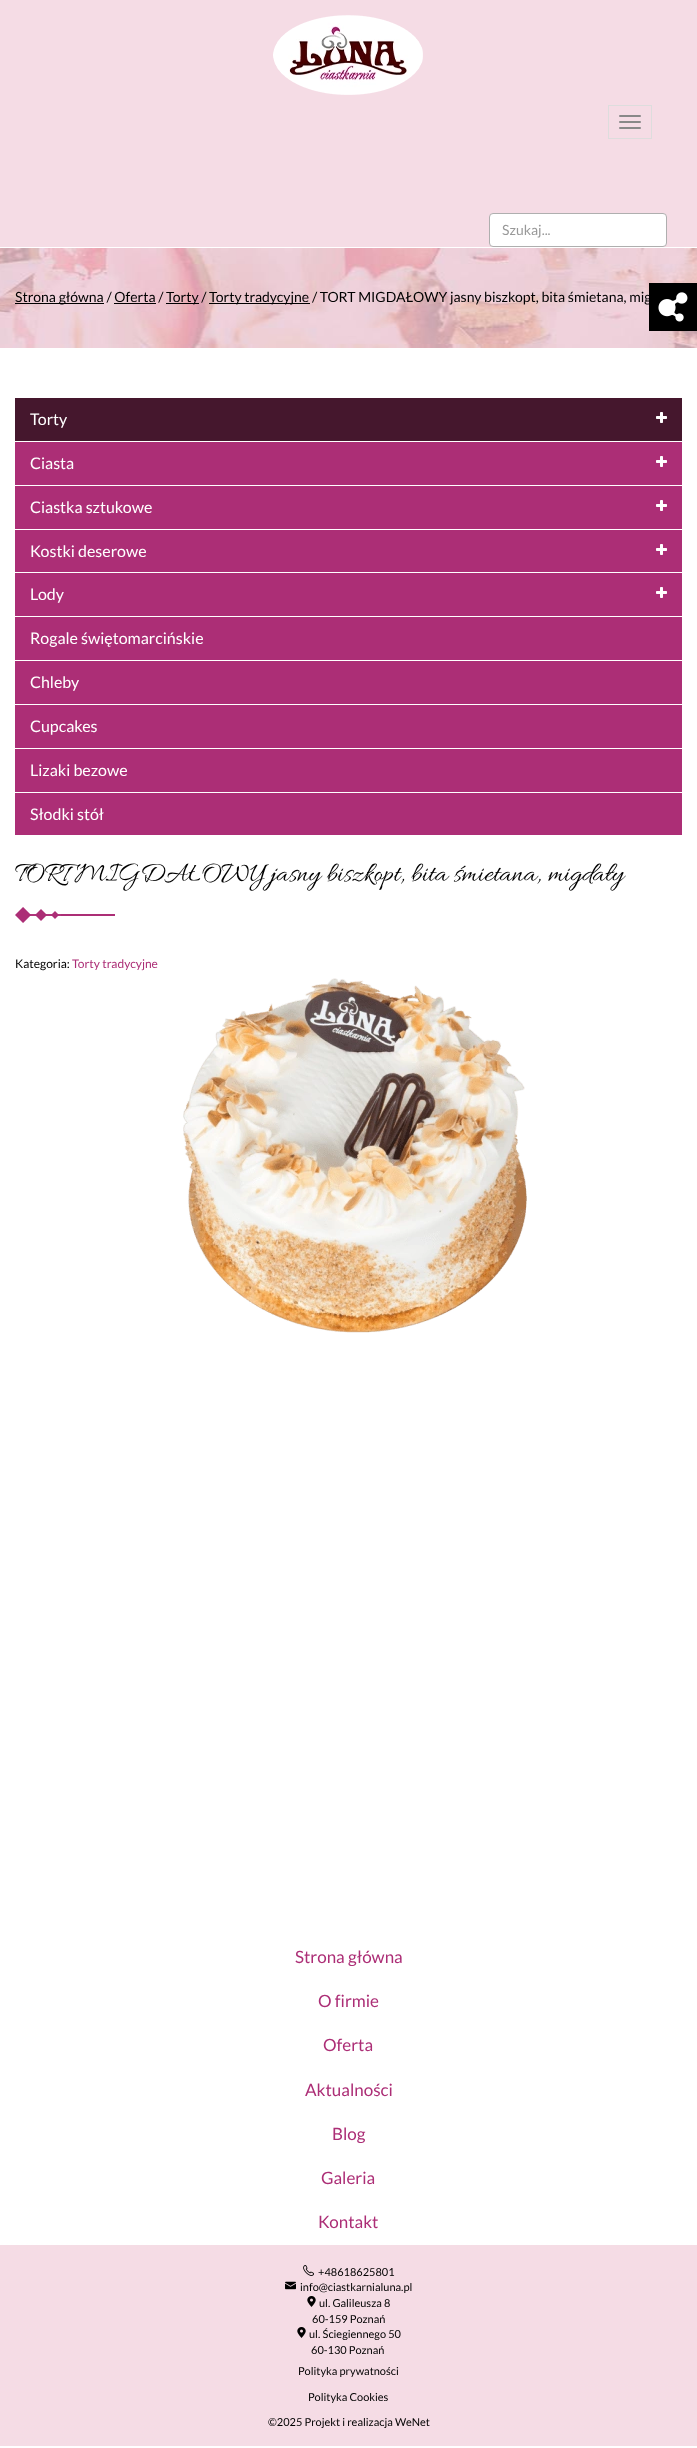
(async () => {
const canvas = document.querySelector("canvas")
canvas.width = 697
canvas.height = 2448
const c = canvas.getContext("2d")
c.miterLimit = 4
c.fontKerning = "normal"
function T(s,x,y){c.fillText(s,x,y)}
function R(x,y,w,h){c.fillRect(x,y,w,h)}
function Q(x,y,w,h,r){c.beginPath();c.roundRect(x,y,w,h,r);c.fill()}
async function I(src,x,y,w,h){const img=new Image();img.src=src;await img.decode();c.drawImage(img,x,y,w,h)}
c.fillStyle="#fff"
R(0,0,697,2448)
c.fillStyle="#f5dce5"
R(0,0,697,247)
await I("1.png",273,15,150,80)
c.strokeStyle="#ddd"
c.strokeRect(608.5,105.5,43,33)
c.fillStyle="#888"
Q(619,115,22,2,1)
Q(619,121,22,2,1)
Q(619,127,22,2,1)
c.fillStyle="#fff"
c.beginPath()
c.roundRect(489.5,213.5,177,33,3.5)
c.fill()
c.strokeStyle="#afafaf"
c.stroke()
c.font="14px Lato"
c.fillStyle="#999"
T("Szukaj...",502,235)
await I("2.png",0,248,697,100)
c.fillStyle="#000"
R(15,303,89,1)
T("Strona główna / Oferta /",15,302)
R(166,303,33,1)
T("Torty /",166,302)
R(209,303,101,1)
T("Torty tradycyjne / TORT MIGDAŁOWY jasny biszkopt, bita śmietana, mig",209,302)
R(114,303,42,1)
c.fillStyle="#ac2e76"
R(15,442,667,393)
c.fillStyle="#45172d"
R(15,398,667,43)
c.font="16px Lato"
c.fillStyle="#fff"
T("Torty",30,425)
await I("3.png",656,412,11,11)
R(15,485,667,1)
T("Ciasta",30,469)
await I("4.png",656,456,11,11)
R(15,529,667,1)
T("Ciastka sztukowe",30,513)
await I("4.png",656,500,11,11)
R(15,572,667,1)
T("Kostki deserowe",30,557)
await I("4.png",656,544,11,11)
R(15,616,667,1)
T("Lody",30,600)
await I("4.png",656,587,11,11)
R(15,660,667,1)
T("Rogale świętomarcińskie",30,644)
R(15,704,667,1)
T("Chleby",30,688)
R(15,748,667,1)
T("Cupcakes",30,732)
R(15,792,667,1)
T("Lizaki bezowe",30,776)
T("Słodki stół",30,820)
c.font="28px Allura"
c.fillStyle="#000"
T("TORT MIGDAŁOWY jasny biszkopt, bita śmietana, migdały",15,880)
await I("5.png",15,907,100,16)
c.font="12px Lato"
T("Kategoria:",15,968)
c.fillStyle="#ac2e76"
T("Torty tradycyjne",72,968)
await I("6.png",183,978,344,355)
c.fillStyle="#000"
R(649,283,48,48)
await I("7.png",658,292,30,30)
c.font="17px Lato"
c.fillStyle="#ac2e76"
T("Strona główna",295,1963)
T("O firmie",318,2007)
T("Oferta",323,2051)
T("Aktualności",305,2096)
T("Blog",332,2140)
T("Galeria",321,2184)
T("Kontakt",318,2228)
c.fillStyle="#f5dce5"
R(0,2245,697,201)
await I("8.png",303,2265,11,11)
c.font="11px Lato"
c.fillStyle="#000"
T("+48618625801",318,2276)
await I("9.png",285,2281,11,9)
T("info@ciastkarnialuna.pl",300,2291)
await I("10.png",307,2296,9,11)
T("ul. Galileusza 8",319,2307)
T("60-159 Poznań",312,2323)
await I("10.png",297,2327,9,11)
T("ul. Ściegiennego 50",309,2338)
T("60-130 Poznań",311,2354)
T("Polityka prywatności",298,2375)
T("Polityka Cookies",308,2401)
T("©2025 Projekt i realizacja WeNet",268,2426)
})()
